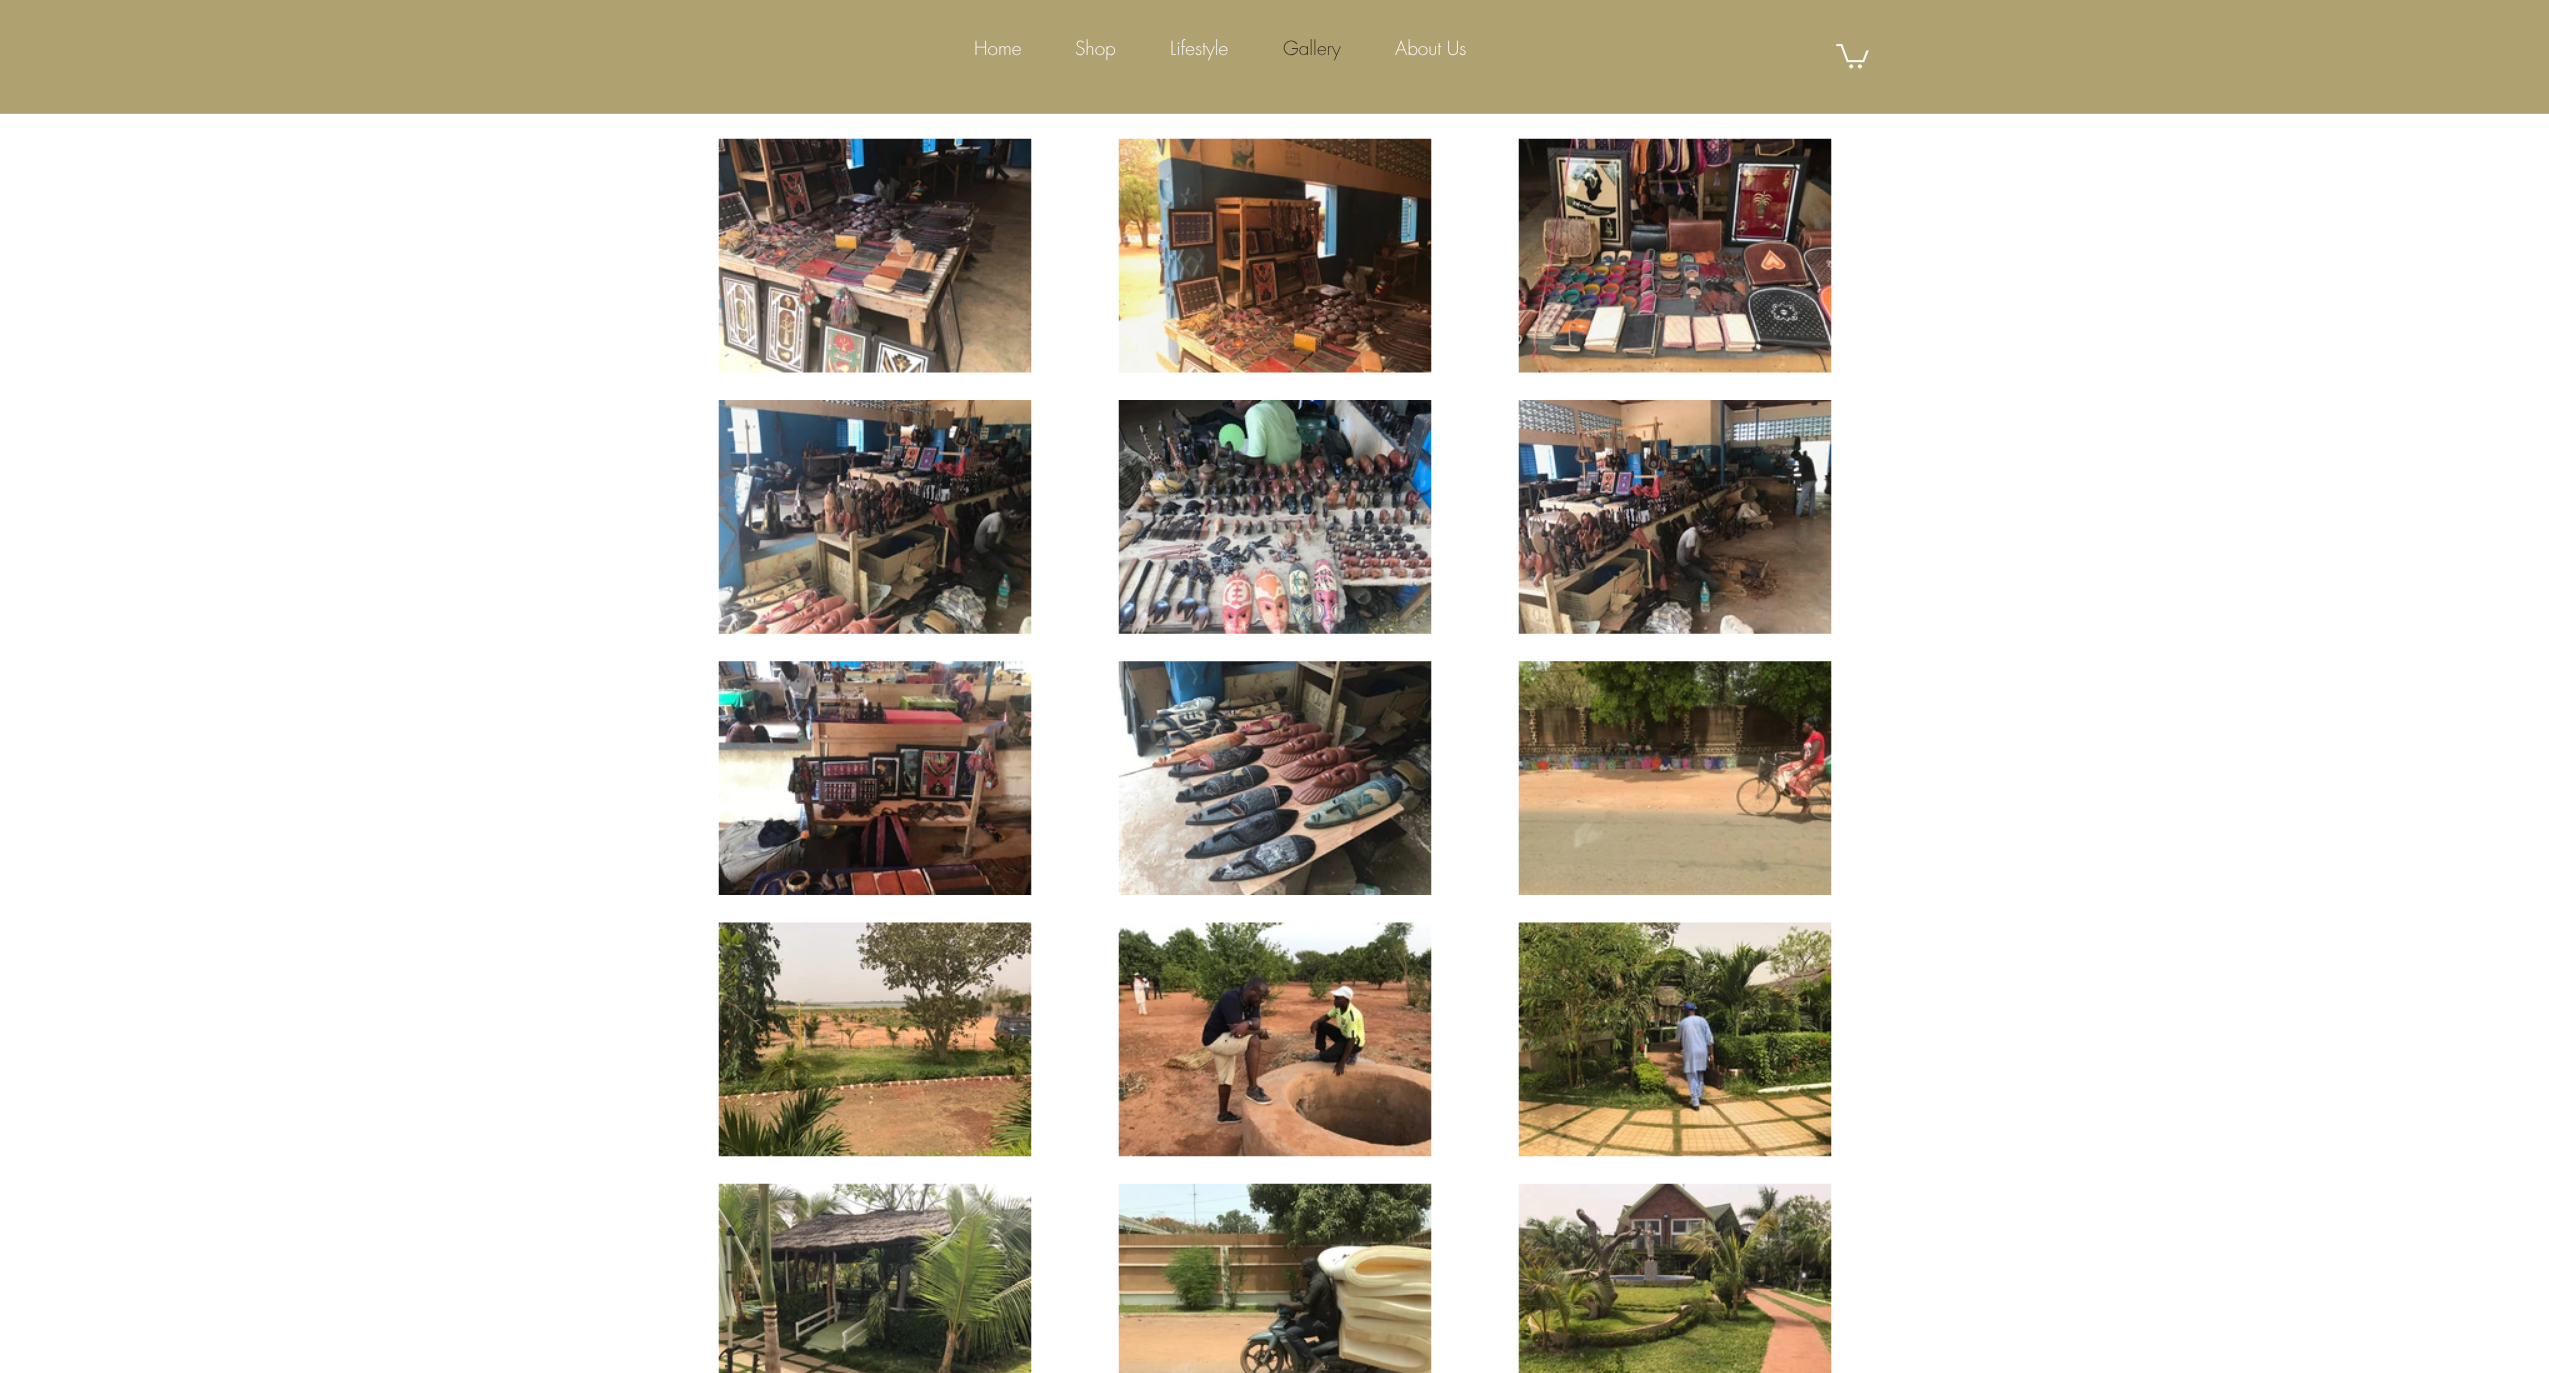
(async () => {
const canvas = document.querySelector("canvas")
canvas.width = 2549
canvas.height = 1373
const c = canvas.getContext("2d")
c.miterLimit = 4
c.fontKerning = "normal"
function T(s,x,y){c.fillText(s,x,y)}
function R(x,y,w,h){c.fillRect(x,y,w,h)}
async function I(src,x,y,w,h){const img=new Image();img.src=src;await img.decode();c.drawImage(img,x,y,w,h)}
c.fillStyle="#fff"
R(0,0,2549,1373)
c.fillStyle="#b0a171"
R(0,0,2549,113)
c.fillStyle="#bdb28c"
R(0,113,2549,1)
c.font="300 19px futura"
c.fillStyle="#f6f5f5"
T("Home",974,55)
T("Shop",1075,55)
T("Lifestyle",1170,55)
c.fillStyle="#3b3626"
T("Gallery",1283,55)
c.fillStyle="#f6f5f5"
T("About Us",1395,55)
await I("1.png",1836,44,33,25)
await I("2.png",718,138,314,235)
await I("3.png",1118,138,314,235)
await I("4.png",1518,138,314,235)
await I("5.png",718,400,314,234)
await I("6.png",1118,400,314,234)
await I("7.png",1518,400,314,234)
await I("8.png",718,661,314,234)
await I("9.png",1118,661,314,234)
await I("10.png",1518,661,314,234)
await I("11.png",718,922,314,235)
await I("12.png",1118,922,314,235)
await I("13.png",1518,922,314,235)
await I("14.png",718,1183,314,190)
await I("15.png",1118,1183,314,190)
await I("16.png",1518,1183,314,190)
})()
